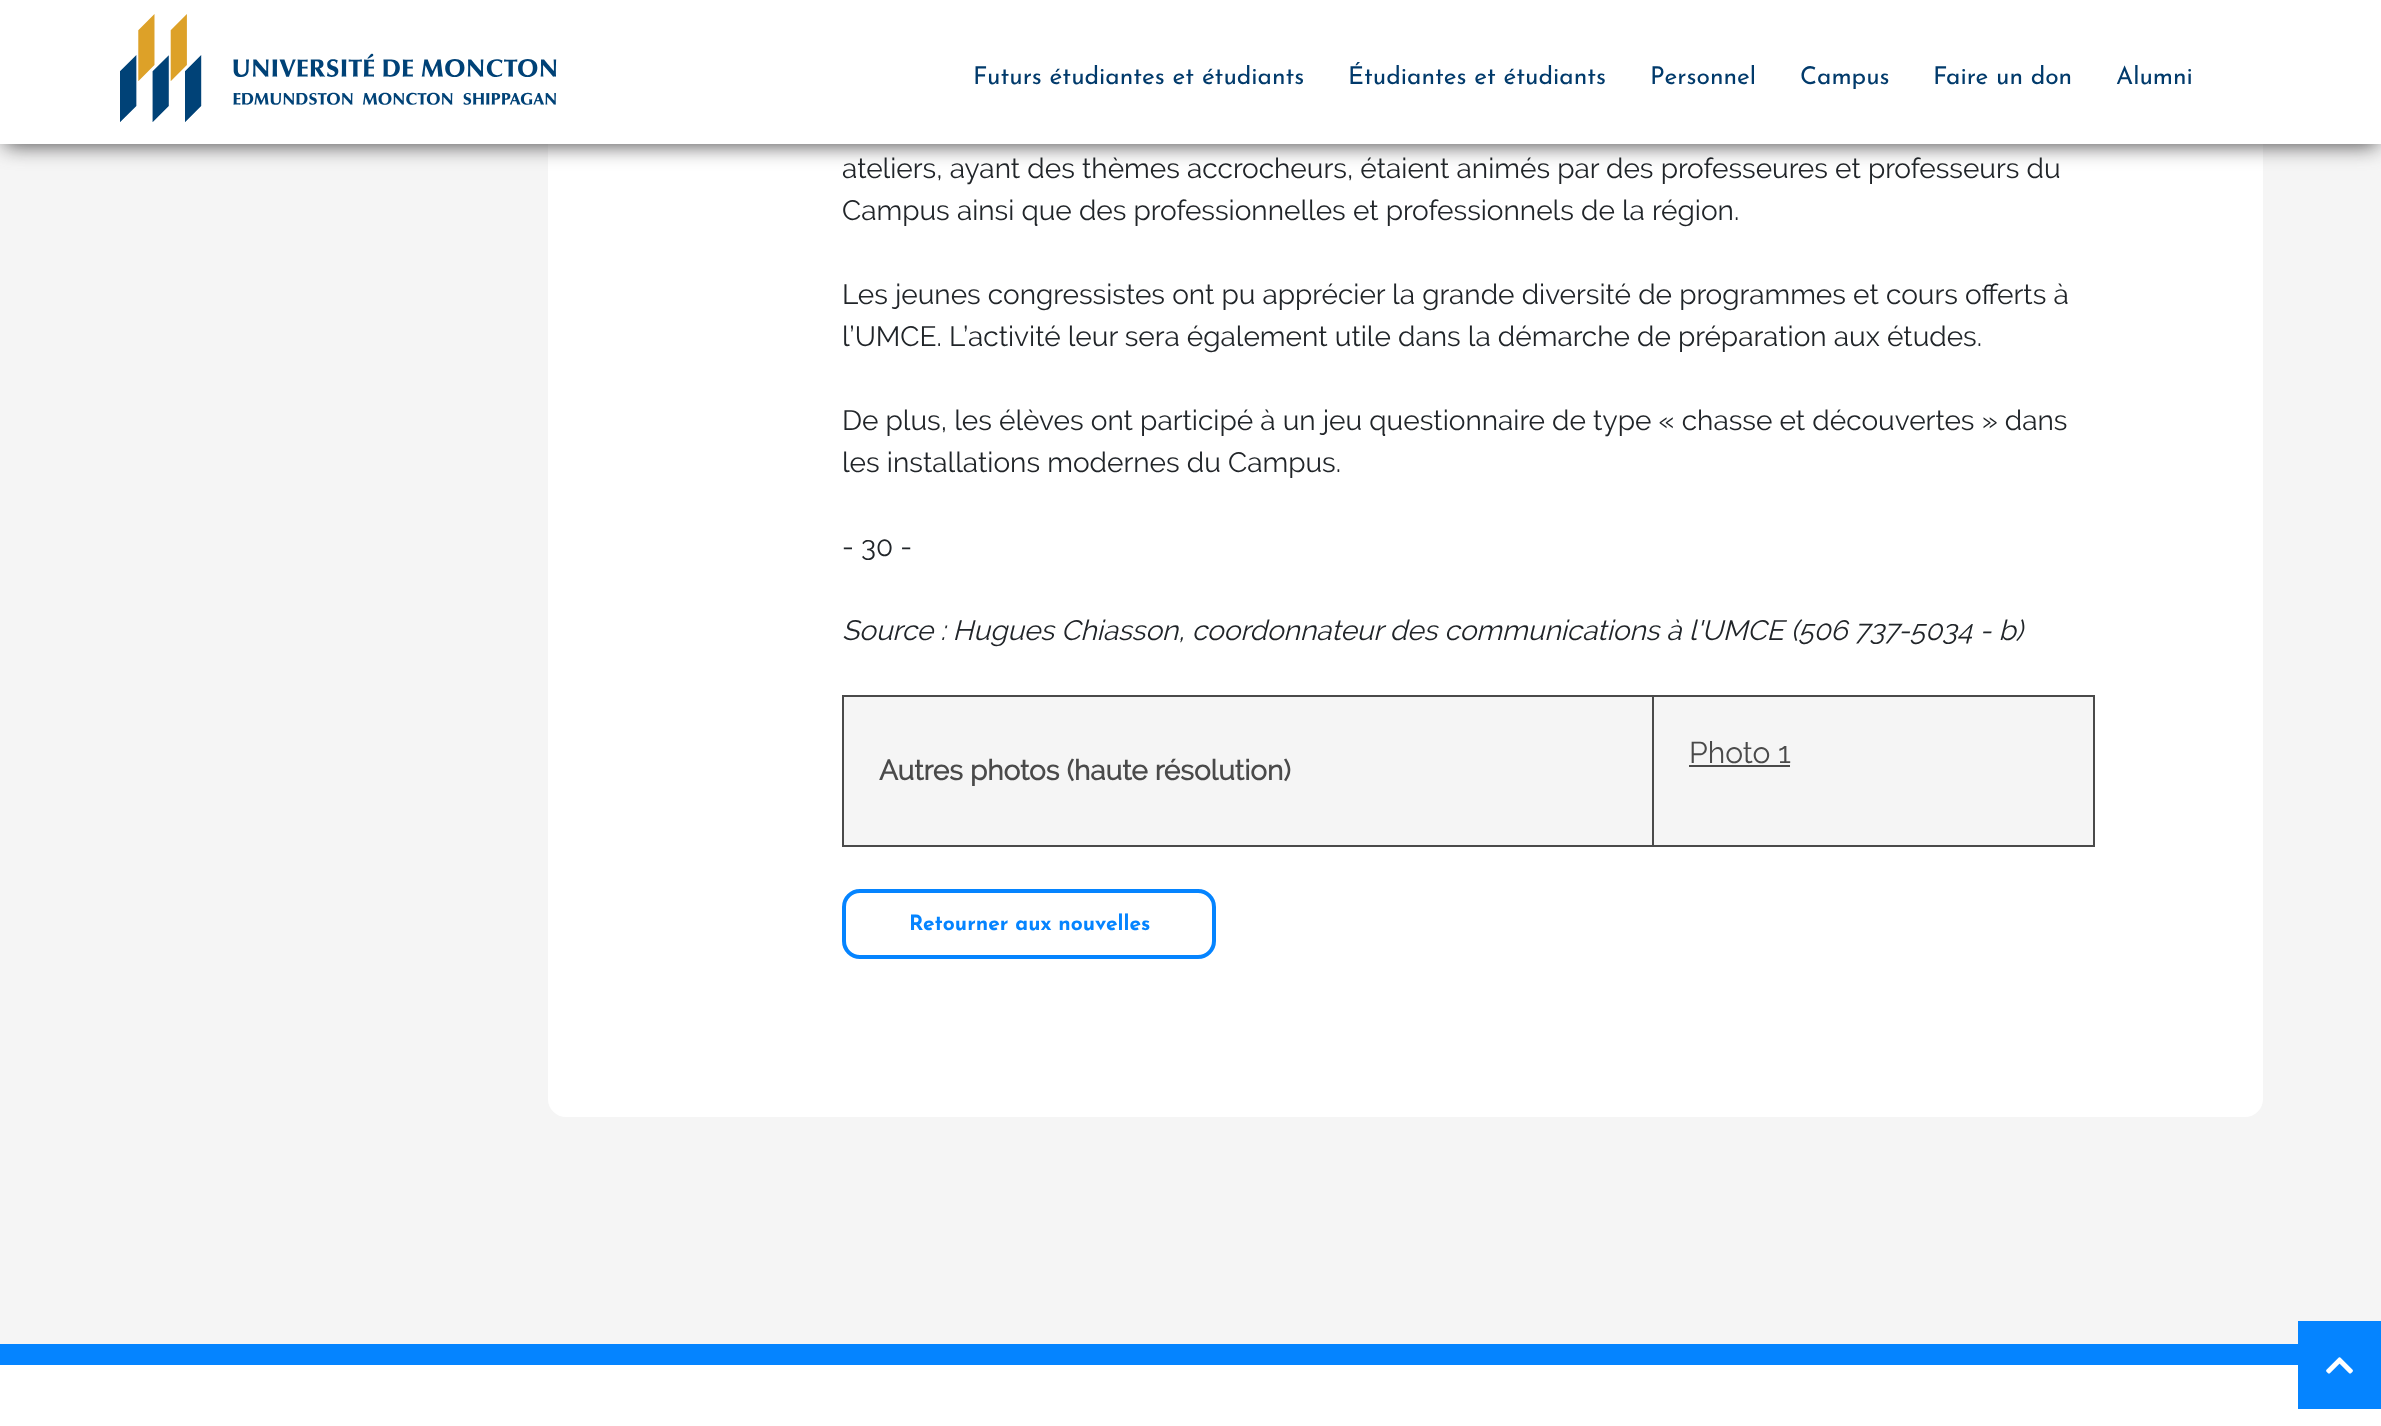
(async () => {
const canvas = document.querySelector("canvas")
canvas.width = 2381
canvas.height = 1426
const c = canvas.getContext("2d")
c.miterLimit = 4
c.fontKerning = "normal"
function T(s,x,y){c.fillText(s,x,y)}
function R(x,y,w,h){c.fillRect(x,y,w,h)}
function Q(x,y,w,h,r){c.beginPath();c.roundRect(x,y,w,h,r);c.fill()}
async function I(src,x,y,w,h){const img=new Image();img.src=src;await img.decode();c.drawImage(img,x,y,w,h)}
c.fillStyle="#f5f5f5"
R(0,0,2381,1426)
c.fillStyle="#fff"
Q(548,-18,1715,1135,18)
c.fillStyle="#454445"
c.filter="blur(10.5px)"
c.beginPath()
c.rect(5,12,2372,133)
c.fill()
c.filter="none"
c.fillStyle="#fff"
R(0,0,2381,144)
await I("1.png",120,14,437,108)
c.font="24.5px Josefin Sans"
c.fillStyle="#013a6b"
T("Futurs étudiantes et étudiants",973,84)
T("Étudiantes et étudiants",1348,84)
T("Personnel",1650,84)
T("Campus",1800,84)
T("Faire un don",1933,84)
T("Alumni",2116,84)
c.font="28px Raleway"
c.fillStyle="#212529"
T("ateliers, ayant des thèmes accrocheurs, étaient animés par des professeures et professeurs du",842,178)
T("Campus ainsi que des professionnelles et professionnels de la région.",842,220)
T("Les jeunes congressistes ont pu apprécier la grande diversité de programmes et cours offerts à",842,304)
T("l’UMCE. L’activité leur sera également utile dans la démarche de préparation aux études.",842,346)
T("De plus, les élèves ont participé à un jeu questionnaire de type « chasse et découvertes » dans",842,430)
T("les installations modernes du Campus.",842,472)
T("- 30 -",842,556)
c.font="italic 28px Raleway"
T("Source : Hugues Chiasson, coordonnateur des communications à l'UMCE (506 737-5034 - b)",842,640)
c.fillStyle="#f5f5f5"
R(844,697,1249,148)
c.fillStyle="#4a4a4a"
R(1652,695,443,2)
R(2093,695,2,152)
R(1652,845,443,2)
R(1652,695,2,152)
c.font="30px Raleway"
T("Photo 1",1689,763)
R(1689,765,101,2)
R(842,695,812,2)
R(842,845,812,2)
R(842,695,2,152)
c.font="bold 28px Raleway"
T("Autres photos (haute résolution)",879,780)
c.beginPath()
c.roundRect(844,891,370,66,16)
c.strokeStyle="#0584ff"
c.lineWidth=4
c.stroke()
c.font="bold 21px Josefin Sans"
c.fillStyle="#0584ff"
T("Retourner aux nouvelles",909,930)
c.fillStyle="#fff"
R(0,1365,2381,61)
c.fillStyle="#0584ff"
R(2298,1321,83,88)
await I("2.png",2326,1357,27,17)
R(0,1344,2298,21)
})()
